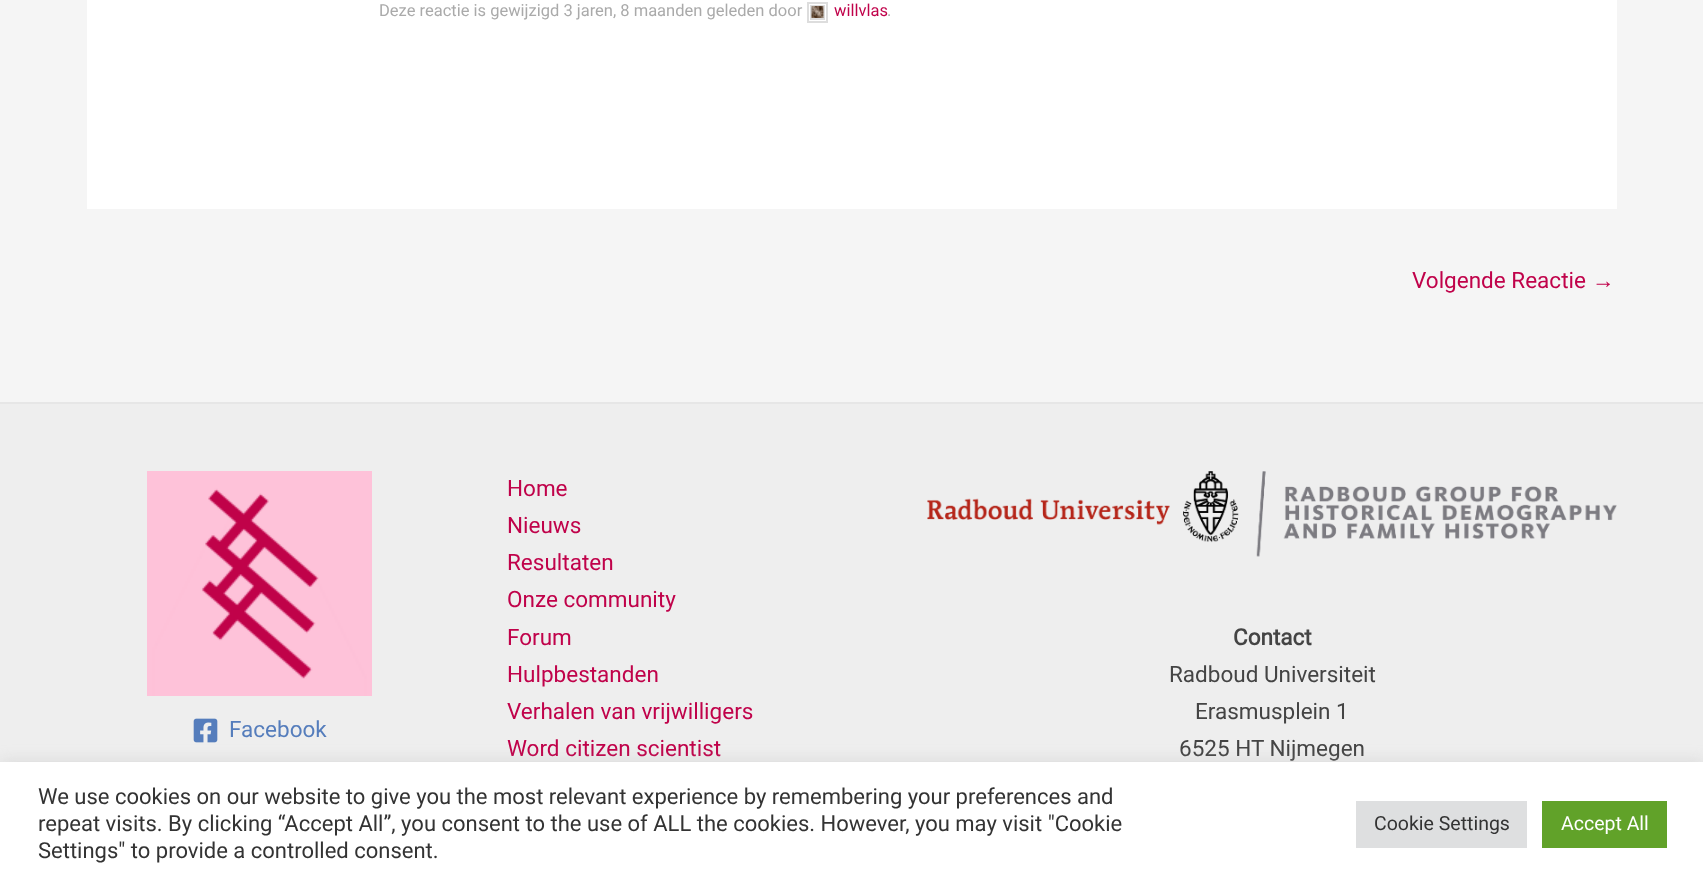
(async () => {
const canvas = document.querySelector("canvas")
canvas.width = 1703
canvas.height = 885
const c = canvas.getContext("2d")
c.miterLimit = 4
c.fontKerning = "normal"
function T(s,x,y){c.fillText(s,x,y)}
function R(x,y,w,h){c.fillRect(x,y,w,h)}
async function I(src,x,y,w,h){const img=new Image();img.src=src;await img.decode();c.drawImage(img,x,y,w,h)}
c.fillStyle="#f5f5f5"
R(0,0,1703,885)
c.fillStyle="#fff"
R(87,0,1530,209)
c.font="16.5px Roboto"
c.fillStyle="#aaa"
T("Deze reactie is gewijzigd 3 jaren, 8 maanden geleden door",379,16)
c.strokeStyle="#ddd"
c.lineWidth=2
c.strokeRect(808,3,19,19)
c.strokeRect(811,6,13,13)
await I("1.png",811,6,13,12)
c.fillStyle="#c0024a"
T("willvlas",834,16)
c.fillStyle="#aaa"
T(".",887,16)
c.font="22.5px Roboto"
c.fillStyle="#c0024a"
T("Volgende Reactie",1412,288)
c.font="22.5px Liberation Sans"
T("→",1592,288)
c.fillStyle="#eee"
R(0,404,1703,358)
c.fillStyle="#e6e6e6"
R(0,402,1703,2)
await I("2.png",147,471,225,225)
await I("3.png",193,718,25,25)
c.font="22.5px Roboto"
c.fillStyle="#557dbc"
T("Facebook",229,737)
c.fillStyle="#c0024a"
T("Home",507,496)
T("Nieuws",507,533)
T("Resultaten",507,570)
T("Onze community",507,607)
T("Forum",507,645)
T("Hulpbestanden",507,682)
T("Verhalen van vrijwilligers",507,719)
T("Word citizen scientist",507,756)
await I("4.png",927,471,690,86)
c.font="bold 22.5px Roboto"
c.fillStyle="#444"
T("Contact",1233,645)
c.font="22.5px Roboto"
T("Radboud Universiteit",1169,682)
T("Erasmusplein 1",1195,719)
T("6525 HT Nijmegen",1179,756)
c.fillStyle="#acabab4d"
c.filter="blur(7.5px)"
c.beginPath()
c.rect(0,761,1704,123)
c.fill()
c.filter="none"
c.fillStyle="#fff"
R(0,762,1703,123)
c.font="22px Roboto"
c.fillStyle="#333"
T("We use cookies on our website to give you the most relevant experience by remembering your preferences and",38,804)
T("repeat visits. By clicking “Accept All”, you consent to the use of ALL the cookies. However, you may visit \"Cookie",38,831)
T("Settings\" to provide a controlled consent.",38,858)
c.fillStyle="#dedfe0"
R(1356,801,171,47)
c.font="19.5px Roboto"
c.fillStyle="#333"
T("Cookie Settings",1374,830)
c.fillStyle="#61a229"
R(1542,801,125,47)
c.fillStyle="#fff"
T("Accept All",1561,830)
})()
